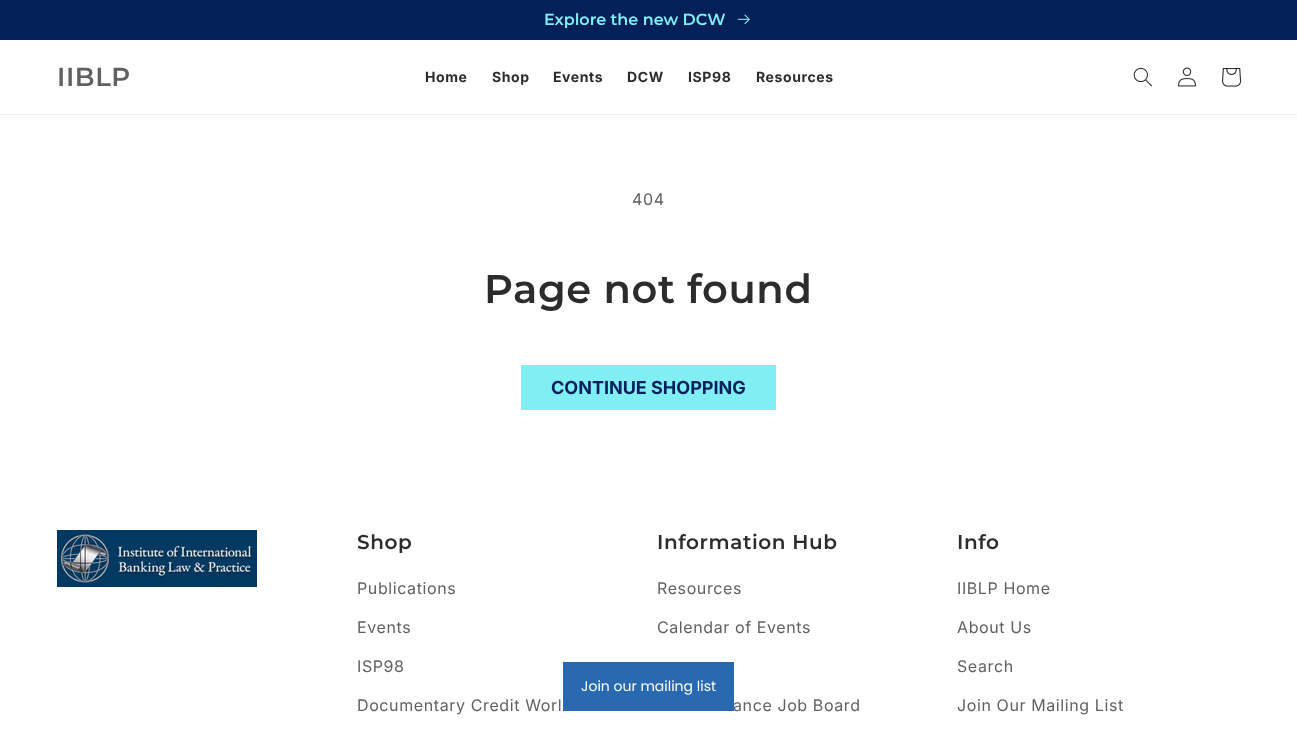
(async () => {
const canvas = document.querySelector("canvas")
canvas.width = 1297
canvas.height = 743
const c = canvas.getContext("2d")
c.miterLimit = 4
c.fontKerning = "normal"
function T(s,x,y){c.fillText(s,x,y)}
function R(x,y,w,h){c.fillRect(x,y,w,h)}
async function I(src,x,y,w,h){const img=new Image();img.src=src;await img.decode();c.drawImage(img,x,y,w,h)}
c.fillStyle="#fff"
R(0,0,1297,743)
c.fillStyle="#042058"
R(0,39,1297,1)
c.fillStyle="#032059"
R(0,0,1297,39)
c.font="600 16px Montserrat"
c.fillStyle="#81eef3"
T("Explore the new DCW",544,25)
await I("1.png",738,14,12,11)
c.fillStyle="#eee"
R(0,114,1297,1)
c.letterSpacing="0.6px"
c.font="600 26px Montserrat"
c.fillStyle="#616161"
T("IIBLP",57,86)
c.font="bold 14px Inter"
c.fillStyle="#2c2c2c"
T("Home",425,82)
T("Shop",492,82)
T("Events",553,82)
T("DCW",627,82)
T("ISP98",688,82)
T("Resources",756,82)
await I("2.png",1133,67,19,20)
await I("3.png",1178,67,18,20)
await I("4.png",1222,68,20,19)
c.font="16px Inter"
c.fillStyle="#616161"
T("404",632,205)
c.font="600 40px Montserrat"
c.fillStyle="#2c2c2c"
T("Page not found",484,303)
c.fillStyle="#81eef3"
R(521,365,255,45)
c.letterSpacing="0px"
c.font="bold 18px Inter"
c.fillStyle="#001f5c"
T("CONTINUE SHOPPING",551,394)
await I("5.png",57,530,200,57)
c.letterSpacing="0.6px"
c.font="600 20px Montserrat"
c.fillStyle="#2c2c2c"
T("Shop",357,549)
c.font="16px Inter"
c.fillStyle="#616161"
T("Publications",357,594)
T("Events",357,633)
T("ISP98",357,672)
T("Documentary Credit Worl",357,711)
c.font="600 20px Montserrat"
c.fillStyle="#2c2c2c"
T("Information Hub",657,549)
c.font="16px Inter"
c.fillStyle="#616161"
T("Resources",657,594)
T("Calendar of Events",657,633)
T("ance Job Board",733,711)
c.font="600 20px Montserrat"
c.fillStyle="#2c2c2c"
T("Info",957,549)
c.font="16px Inter"
c.fillStyle="#616161"
T("IIBLP Home",957,594)
T("About Us",957,633)
T("Search",957,672)
T("Join Our Mailing List",957,711)
c.fillStyle="#2969b0"
R(563,662,171,49)
c.letterSpacing="0px"
c.font="14px Poppins"
c.fillStyle="#fff"
T("Join our mailing list",581,691)
})()
